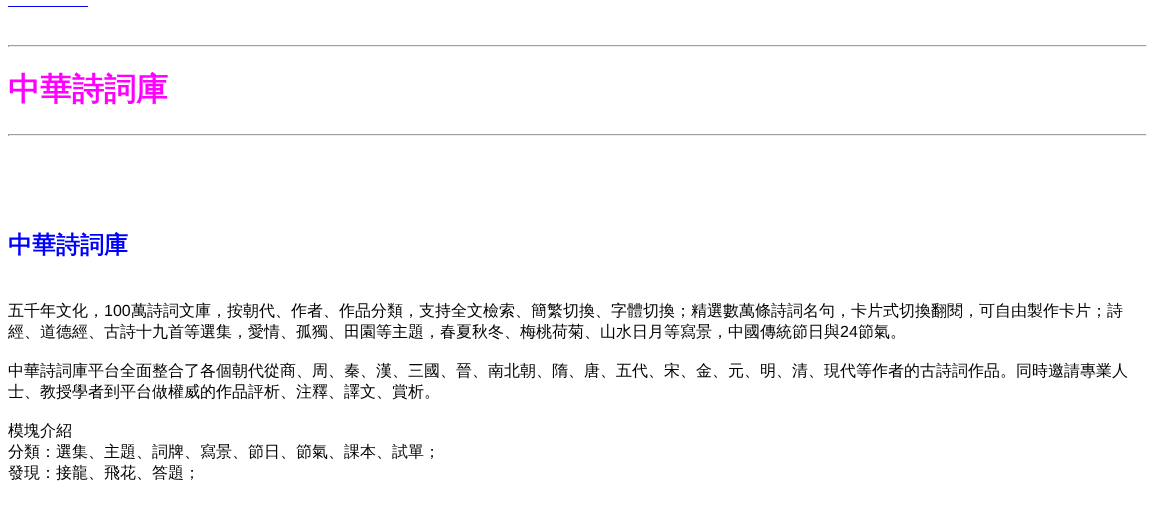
(async () => {
const canvas = document.querySelector("canvas")
canvas.width = 1155
canvas.height = 511
const c = canvas.getContext("2d")
c.miterLimit = 4
c.fontKerning = "normal"
function T(s,x,y){c.fillText(s,x,y)}
function R(x,y,w,h){c.fillRect(x,y,w,h)}
c.fillStyle="#fff"
R(0,0,1155,511)
c.fillStyle="#00e"
R(8,6,80,1)
c.fillStyle="#9f9f9f"
R(8,45,1139,1)
c.fillStyle="#eee"
R(1146,45,1,2)
R(8,46,1139,1)
c.fillStyle="#9f9f9f"
R(8,45,1,2)
c.font="bold 32px WenQuanYi Zen Hei"
c.fillStyle="#f0f"
T("中華詩詞庫",8,100)
c.fillStyle="#9f9f9f"
R(8,134,1139,1)
c.fillStyle="#eee"
R(1146,134,1,2)
R(8,135,1139,1)
c.fillStyle="#9f9f9f"
R(8,134,1,2)
c.font="bold 24px WenQuanYi Zen Hei"
c.fillStyle="#00f"
T("中華詩詞庫",8,253)
c.font="500 16px WenQuanYi Zen Hei"
c.fillStyle="#000"
T("五千年文化，",8,316)
c.font="16px Liberation Sans"
T("100",104,316)
c.font="500 16px WenQuanYi Zen Hei"
T("萬詩詞文庫，按朝代、作者、作品分類，支持全文檢索、簡繁切換、字體切換；精選數萬條詩詞名句，卡片式切換翻閱，可自由製作卡片；詩",131,316)
T("經、道德經、古詩十九首等選集，愛情、孤獨、田園等主題，春夏秋冬、梅桃荷菊、山水日月等寫景，中國傳統節日與",8,337)
c.font="16px Liberation Sans"
T("24",840,337)
c.font="500 16px WenQuanYi Zen Hei"
T("節氣。",858,337)
T("中華詩詞庫平台全面整合了各個朝代從商、周、秦、漢、三國、晉、南北朝、隋、唐、五代、宋、金、元、明、清、現代等作者的古詩詞作品。同時邀請專業人",8,376)
T("士、教授學者到平台做權威的作品評析、注釋、譯文、賞析。",8,397)
T("模塊介紹",8,436)
T("分類：選集、主題、詞牌、寫景、節日、節氣、課本、試單；",8,457)
T("發現：接龍、飛花、答題；",8,478)
})()
